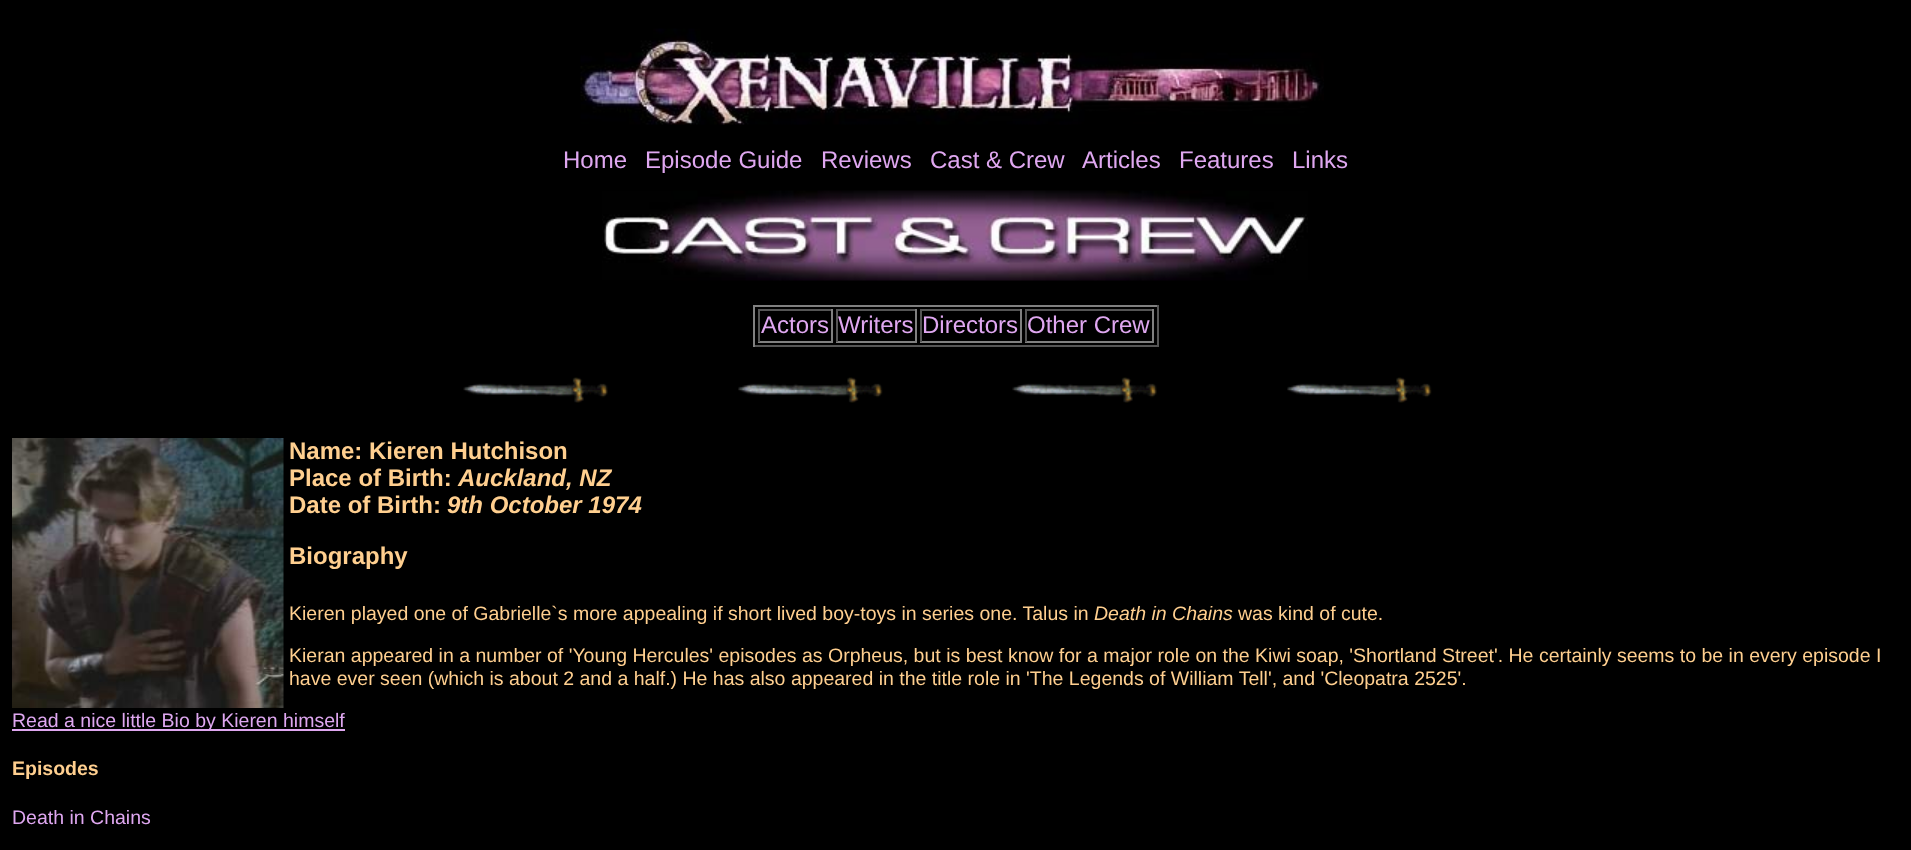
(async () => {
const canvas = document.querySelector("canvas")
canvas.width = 1911
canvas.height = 850
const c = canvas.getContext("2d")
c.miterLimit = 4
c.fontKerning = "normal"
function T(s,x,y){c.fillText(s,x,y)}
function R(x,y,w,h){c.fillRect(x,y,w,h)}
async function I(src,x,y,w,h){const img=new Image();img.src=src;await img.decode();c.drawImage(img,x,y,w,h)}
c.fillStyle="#000"
R(0,0,1911,850)
await I("1.png",580,28,744,97)
c.font="24px Liberation Sans"
c.fillStyle="#dfa7f0"
T("Home",563,168)
T("Episode Guide",645,168)
T("Reviews",821,168)
T("Cast & Crew",930,168)
T("Articles",1082,168)
T("Features",1179,168)
T("Links",1292,168)
await I("2.png",602,190,706,91)
c.fillStyle="#808080"
R(753,305,405,2)
c.fillStyle="#555"
R(1157,305,2,42)
R(753,345,405,2)
c.fillStyle="#808080"
R(753,305,2,42)
c.fillStyle="#555"
R(758,309,75,2)
c.fillStyle="#808080"
R(831,309,2,33)
R(758,341,75,2)
c.fillStyle="#555"
R(758,309,2,33)
c.fillStyle="#dfa7f0"
T("Actors",761,333)
c.fillStyle="#555"
R(836,309,81,2)
c.fillStyle="#808080"
R(915,309,2,33)
R(836,341,81,2)
c.fillStyle="#555"
R(836,309,2,33)
c.fillStyle="#dfa7f0"
T("Writers",838,333)
c.fillStyle="#555"
R(920,309,102,2)
c.fillStyle="#808080"
R(1020,309,2,33)
R(920,341,102,2)
c.fillStyle="#555"
R(920,309,2,33)
c.fillStyle="#dfa7f0"
T("Directors",922,333)
c.fillStyle="#555"
R(1025,309,129,2)
c.fillStyle="#808080"
R(1152,309,2,33)
R(1025,341,129,2)
c.fillStyle="#555"
R(1025,309,2,33)
c.fillStyle="#dfa7f0"
T("Other Crew",1027,333)
await I("3.png",463,377,145,26)
await I("4.png",738,377,145,26)
await I("5.png",1012,377,145,26)
await I("6.png",1287,377,145,26)
await I("7.png",12,438,272,270)
c.font="bold 24px Liberation Sans"
c.fillStyle="#ffcf8f"
T("Name: Kieren Hutchison",289,459)
T("Place of Birth:",289,486)
c.font="italic bold 24px Liberation Sans"
T("Auckland, NZ",458,486)
c.font="bold 24px Liberation Sans"
T("Date of Birth:",289,513)
c.font="italic bold 24px Liberation Sans"
T("9th October 1974",447,513)
c.font="bold 24px Liberation Sans"
T("Biography",289,564)
c.font="19.5px Liberation Sans"
T("Kieren played one of Gabrielle`s more appealing if short lived boy-toys in series one. Talus in",289,620)
c.font="italic 19.5px Liberation Sans"
T("Death in Chains",1094,620)
c.font="19.5px Liberation Sans"
T("was kind of cute.",1238,620)
T("Kieran appeared in a number of 'Young Hercules' episodes as Orpheus, but is best know for a major role on the Kiwi soap, 'Shortland Street'. He certainly seems to be in every episode I",289,662)
T("have ever seen (which is about 2 and a half.) He has also appeared in the title role in 'The Legends of William Tell', and 'Cleopatra 2525'.",289,685)
c.fillStyle="#dfa7f0"
R(12,729,333,2)
T("Read a nice little Bio by Kieren himself",12,727)
c.font="bold 19.5px Liberation Sans"
c.fillStyle="#ffcf8f"
T("Episodes",12,775)
c.font="19.5px Liberation Sans"
c.fillStyle="#dfa7f0"
T("Death in Chains",12,824)
})()
